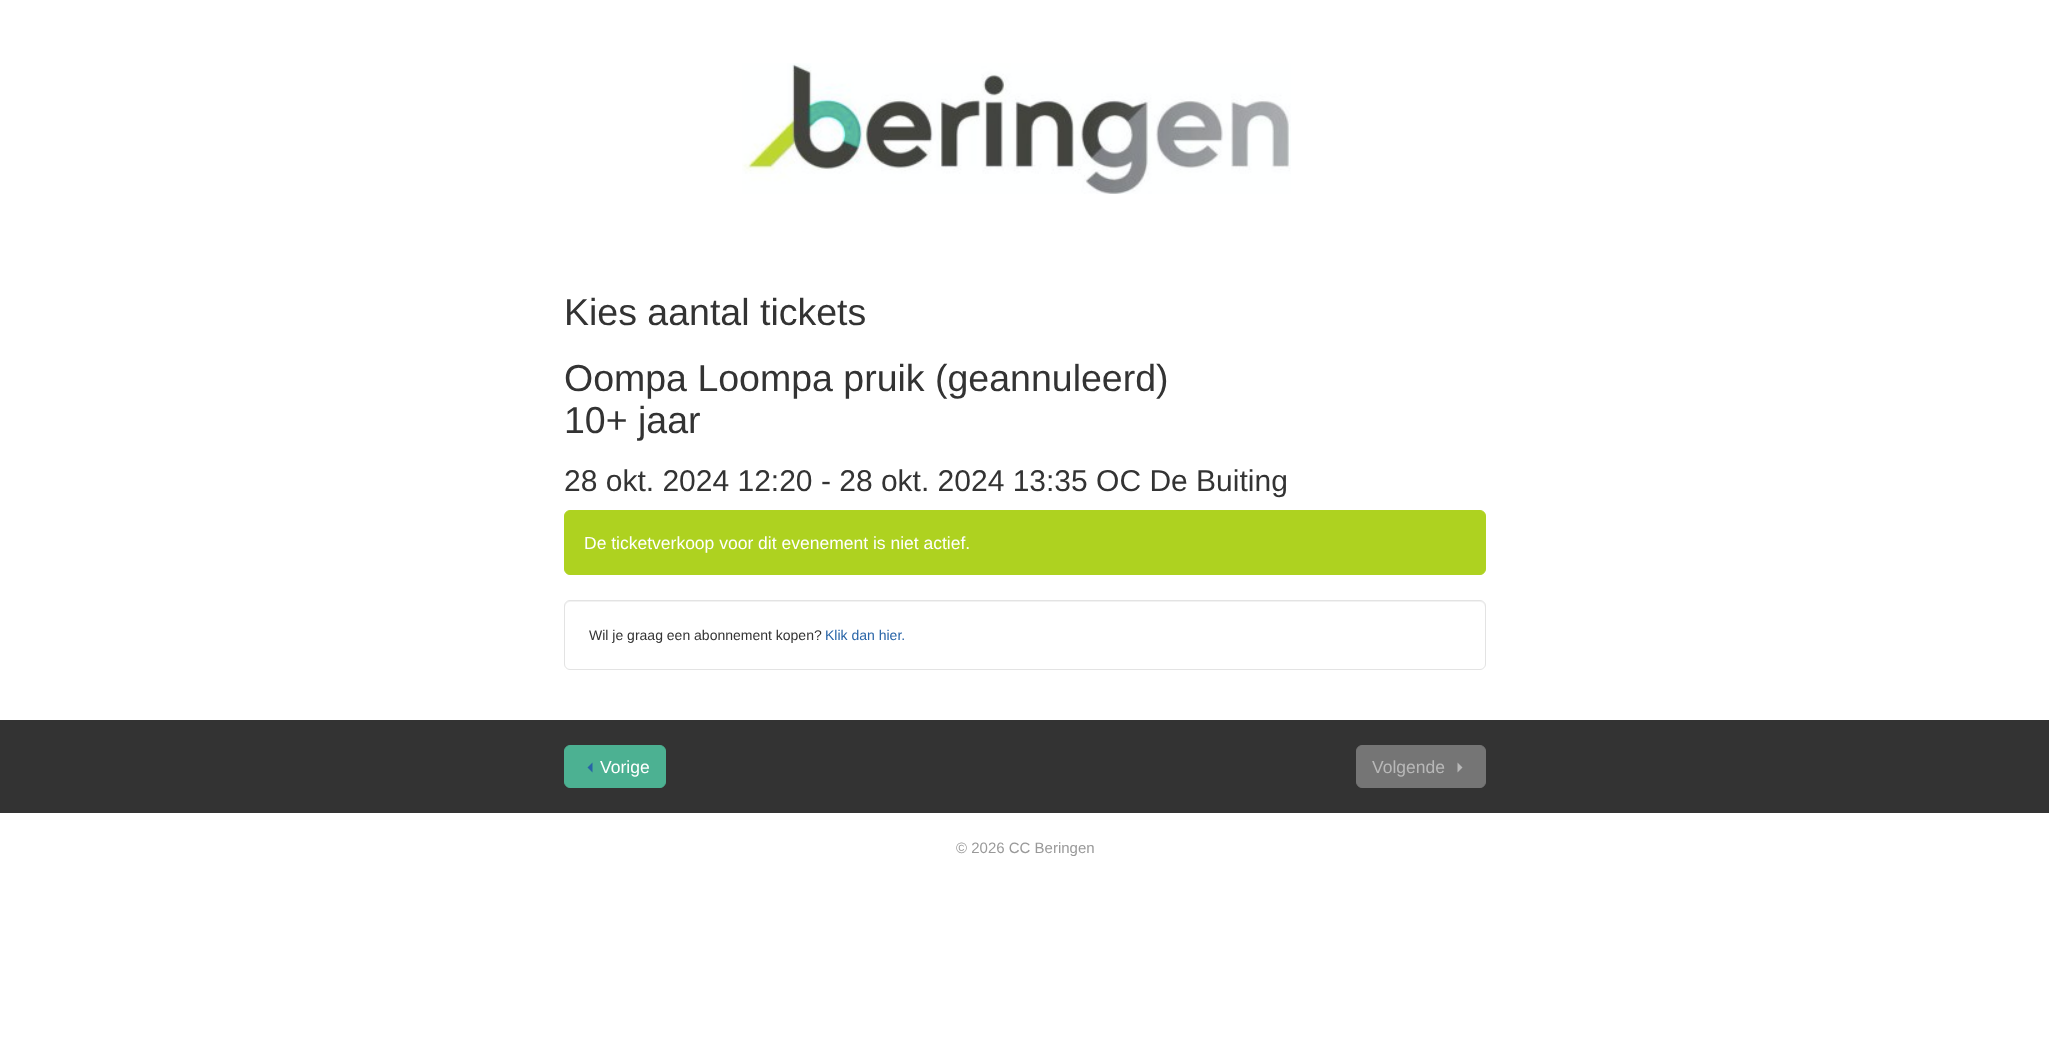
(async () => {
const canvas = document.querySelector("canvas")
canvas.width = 2049
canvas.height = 1044
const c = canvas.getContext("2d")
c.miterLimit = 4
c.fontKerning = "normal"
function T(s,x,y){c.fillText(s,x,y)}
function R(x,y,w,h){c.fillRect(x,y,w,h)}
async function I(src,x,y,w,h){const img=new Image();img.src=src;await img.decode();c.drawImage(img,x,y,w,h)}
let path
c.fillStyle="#fff"
R(0,0,2049,1044)
await I("1.png",742,63,549,131)
c.font="37.5px Liberation Sans"
c.fillStyle="#333"
T("Kies aantal tickets",564,325)
T("Oompa Loompa pruik (geannuleerd)",564,391)
T("10+ jaar",564,433)
c.font="30px Liberation Sans"
T("28 okt. 2024 12:20 - 28 okt. 2024 13:35 OC De Buiting",564,491)
c.fillStyle="#aed220"
c.beginPath()
c.roundRect(564.5,510.5,921,64,5.5)
c.fill()
c.strokeStyle="#aed220"
c.stroke()
c.font="17.5px Liberation Sans"
c.fillStyle="#fff"
T("De ticketverkoop voor dit evenement is niet actief.",584,549)
c.fillStyle="#f2f2f2"
path = new Path2D("M570 602h910c3 0 5 3 5 6v-2c0-3-2-5-5-5h-910c-3 0-5 2-5 5v2c0-3 2-6 5-6z")
c.fill(path)
c.beginPath()
c.roundRect(564.5,600.5,921,69,5.5)
c.strokeStyle="#e3e3e3"
c.stroke()
c.font="14px Liberation Sans"
c.fillStyle="#333"
T("Wil je graag een abonnement kopen?",589,640)
c.fillStyle="#2864a7"
T("Klik dan hier.",825,640)
c.fillStyle="#333"
R(0,720,2049,93)
c.fillStyle="#4cb192"
c.beginPath()
c.roundRect(564.5,745.5,101,42,5.5)
c.fill()
c.strokeStyle="#4cb192"
c.stroke()
c.fillStyle="#2864a7"
path = new Path2D("M592.5 762.5v10l-5-5z")
c.fill(path)
c.font="17.5px Liberation Sans"
c.fillStyle="#fff"
T("Vorige",600,773)
c.fillStyle="#757575"
c.beginPath()
c.roundRect(1356.5,745.5,129,42,5.5)
c.fill()
c.strokeStyle="#757575"
c.stroke()
c.fillStyle="#b8b8b8"
T("Volgende",1372,773)
path = new Path2D("M1457.5 772.5v-10l5 5z")
c.fill(path)
c.font="15px Liberation Sans"
c.fillStyle="#999"
T("© 2026 CC Beringen",956,853)
})()
